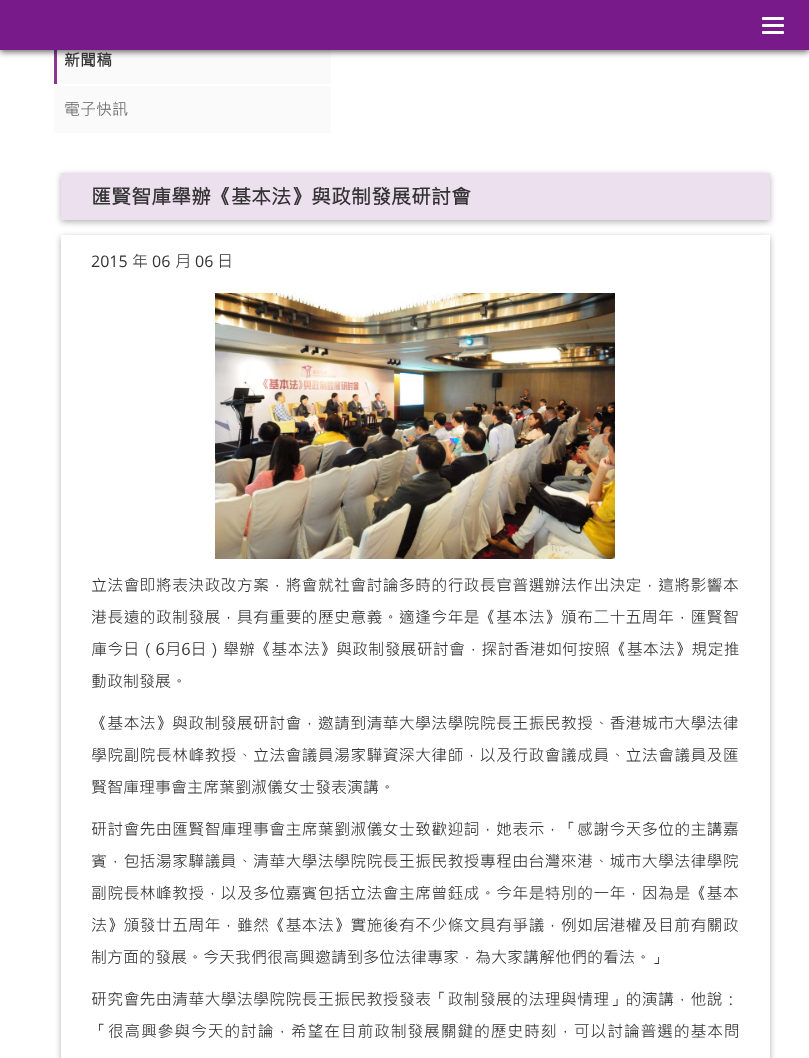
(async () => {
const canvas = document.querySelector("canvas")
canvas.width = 809
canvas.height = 1058
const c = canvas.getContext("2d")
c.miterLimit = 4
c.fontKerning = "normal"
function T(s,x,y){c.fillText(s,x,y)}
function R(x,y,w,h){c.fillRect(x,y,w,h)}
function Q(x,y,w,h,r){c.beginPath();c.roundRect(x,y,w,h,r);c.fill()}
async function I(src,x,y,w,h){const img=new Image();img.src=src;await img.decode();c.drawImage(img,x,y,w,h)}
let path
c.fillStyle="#fff"
R(0,0,809,1058)
c.fillStyle="#fbfafa"
R(57,50,274,34)
c.fillStyle="#8b368f"
R(54,50,3,34)
c.fillStyle="#00000099"
c.filter="blur(3px)"
c.beginPath()
c.rect(0,2,809,50)
c.fill()
c.filter="none"
c.fillStyle="#781a89"
R(0,0,809,50)
c.fillStyle="#fff"
Q(762,17,22,3,1)
Q(762,24,22,3,1)
Q(762,31,22,3,1)
c.font="bold 16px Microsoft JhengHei"
c.fillStyle="#333"
T("新聞稿",64,66)
c.fillStyle="#fbfafa"
R(54,86,277,47)
c.font="16px Microsoft JhengHei"
c.fillStyle="#666"
T("電子快訊",64,115)
c.fillStyle="#0000004d"
c.filter="blur(3px)"
c.beginPath()
c.rect(61,175,709,47)
c.fill()
c.filter="none"
c.fillStyle="#ecdfee"
R(61,173,709,47)
c.font="bold 20px Microsoft JhengHei"
c.fillStyle="#333"
T("匯賢智庫舉辦《基本法》與政制發展研討會",91,204)
c.save()
path = new Path2D("M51 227h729v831h-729zm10 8h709v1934h-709z")
c.clip(path,"evenodd")
c.fillStyle="#0000004d"
c.filter="blur(3px)"
c.beginPath()
c.rect(61,237,709,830)
c.fill()
c.filter="none"
c.restore()
c.font="16px Open Sans"
T("2015",91,267)
c.font="16px Microsoft JhengHei"
T("年",132,267)
c.font="16px Open Sans"
T("06",152,267)
c.font="16px Microsoft JhengHei"
T("月",175,267)
c.font="16px Open Sans"
T("06",195,267)
c.font="16px Microsoft JhengHei"
T("日",217,267)
await I("1.png",215,293,400,266)
c.letterSpacing="0.2px"
T("立法會即將表決政改方案，將會就社會討論多時的行政長官普選辦法作出決定，這將影響本",91,591)
T("港長遠的政制發展，具有重要的歷史意義。適逢今年是《基本法》頒布二十五周年，匯賢智",91,623)
c.letterSpacing="0.15px"
T("庫今日（6月6日）舉辦《基本法》與政制發展研討會，探討香港如何按照《基本法》規定推",91,655)
c.letterSpacing="0px"
T("動政制發展。",91,687)
c.letterSpacing="0.2px"
T("《基本法》與政制發展研討會，邀請到清華大學法學院院長王振民教授、香港城市大學法律",91,729)
T("學院副院長林峰教授、立法會議員湯家驊資深大律師，以及行政會議成員、立法會議員及匯",91,761)
c.letterSpacing="0px"
T("賢智庫理事會主席葉劉淑儀女士發表演講。",91,793)
c.letterSpacing="0.2px"
T("研討會先由匯賢智庫理事會主席葉劉淑儀女士致歡迎詞，她表示，「感謝今天多位的主講嘉",91,835)
T("賓，包括湯家驊議員、清華大學法學院院長王振民教授專程由台灣來港、城市大學法律學院",91,867)
T("副院長林峰教授，以及多位嘉賓包括立法會主席曾鈺成。今年是特別的一年，因為是《基本",91,899)
T("法》頒發廿五周年，雖然《基本法》實施後有不少條文具有爭議，例如居港權及目前有關政",91,931)
c.letterSpacing="0px"
T("制方面的發展。今天我們很高興邀請到多位法律專家，為大家講解他們的看法。」",91,963)
c.letterSpacing="0.2px"
T("研究會先由清華大學法學院院長王振民教授發表「政制發展的法理與情理」的演講，他說：",91,1005)
c.letterSpacing="0.65px"
T("「很高興參與今天的討論，希望在目前政制發展關鍵的歷史時刻，可以討論普選的基本問",91,1037)
})()
